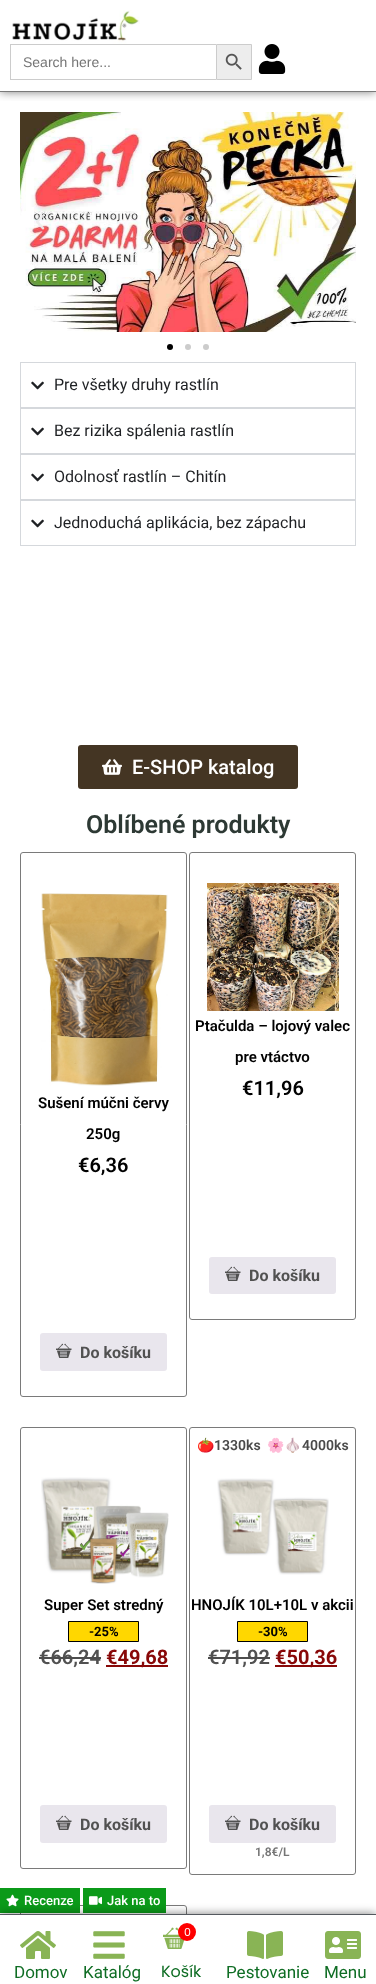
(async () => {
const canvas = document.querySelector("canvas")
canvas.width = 376
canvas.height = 1984
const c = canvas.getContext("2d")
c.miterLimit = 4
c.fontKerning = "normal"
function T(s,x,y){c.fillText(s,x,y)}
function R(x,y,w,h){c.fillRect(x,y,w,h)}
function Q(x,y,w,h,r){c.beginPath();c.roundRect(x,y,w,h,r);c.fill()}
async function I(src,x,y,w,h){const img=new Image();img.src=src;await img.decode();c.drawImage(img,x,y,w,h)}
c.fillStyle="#fff"
R(0,0,376,1984)
c.save()
c.beginPath()
c.rect(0,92,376,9)
c.clip()
c.fillStyle="#00000080"
c.filter="blur(5px)"
c.beginPath()
c.roundRect(0,0,376,92,1)
c.fill()
c.filter="none"
c.restore()
c.fillStyle="#7a7a7a"
R(0,91,376,1)
await I("1.png",12,10,128,34)
c.fillStyle="#ccc"
R(10,44,206,1)
R(10,79,206,1)
R(10,44,1,36)
c.font="14px Liberation Sans"
c.fillStyle="#757575"
T("Search here...",23,67)
c.fillStyle="#ededed"
c.beginPath()
c.rect(216.5,44.5,35,35)
c.fill()
c.strokeStyle="#ccc"
c.stroke()
await I("2.png",225,53,17,17)
await I("3.png",258,44,28,30)
await I("4.png",20,112,336,220)
await I("5.png",36,214,9,16)
await I("6.png",332,214,8,16)
c.fillStyle="#000"
c.beginPath()
c.arc(170,347,3,0,7)
c.fill()
c.fillStyle="#ccc"
c.beginPath()
c.arc(188,347,3,0,7)
c.fill()
c.beginPath()
c.arc(206,347,3,0,7)
c.fill()
c.strokeStyle="#d5d8dc"
c.strokeRect(20.5,362.5,335,45)
await I("7.png",31,381,13,9)
c.font="16px Roboto"
c.fillStyle="#1f2124"
T("Pre všetky druhy rastlín",54,390)
c.strokeRect(20.5,408.5,335,45)
await I("7.png",31,427,13,9)
T("Bez rizika spálenia rastlín",54,436)
c.strokeRect(20.5,454.5,335,45)
await I("7.png",31,473,13,9)
T("Odolnosť rastlín – Chitín",54,482)
c.strokeRect(20.5,500.5,335,45)
await I("7.png",31,519,13,9)
T("Jednoduchá aplikácia, bez zápachu",54,528)
c.fillStyle="#443523"
Q(78,745,220,44,3)
await I("8.png",102,759,20,16)
c.font="500 20px Roboto"
c.fillStyle="#fff"
T("E-SHOP katalog",132,774)
c.font="600 25px Roboto"
c.fillStyle="#2d3934"
T("Oblíbené produkty",86,833)
c.beginPath()
c.roundRect(20.5,852.5,166,544,2.5)
c.strokeStyle="#7a7a7a"
c.stroke()
await I("9.png",41,893,127,193)
c.font="600 15px Roboto"
c.fillStyle="#000"
T("Sušení múčni červy",38,1108)
T("250g",86,1139)
c.font="600 20px Roboto"
T("€6,36",78,1172)
c.fillStyle="#e9e6ed"
Q(40,1333,127,38,3)
await I("10.png",56,1343,16,15)
c.font="bold 16px Roboto"
c.fillStyle="#515151"
T("Do košíku",80,1358)
c.beginPath()
c.roundRect(189.5,852.5,166,467,2.5)
c.stroke()
await I("11.png",207,883,132,128)
c.font="600 15px Roboto"
c.fillStyle="#000"
T("Ptačulda – lojový valec",195,1031)
T("pre vtáctvo",235,1062)
c.font="600 20px Roboto"
T("€11,96",242,1095)
c.fillStyle="#e9e6ed"
Q(209,1257,127,37,3)
await I("10.png",225,1266,16,15)
c.font="bold 16px Roboto"
c.fillStyle="#515151"
T("Do košíku",249,1281)
c.beginPath()
c.roundRect(20.5,1427.5,166,441,2.5)
c.stroke()
await I("12.png",41,1477,128,107)
c.font="600 15px Roboto"
c.fillStyle="#000"
T("Super Set stredný",44,1610)
c.fillStyle="#ffd700"
c.beginPath()
c.rect(68.5,1621.5,70,20)
c.fill()
c.strokeStyle="#000"
c.stroke()
c.font="bold 13px Roboto"
c.fillStyle="#000"
T("-25%",89,1636)
c.font="600 20px Roboto"
c.fillStyle="#515151"
T("€66,24",39,1664)
c.fillStyle="#4d4d4d"
R(39,1657,62,2)
c.fillStyle="#880808"
R(106,1665,62,2)
c.font="bold 20px Roboto"
T("€49,68",106,1664)
c.fillStyle="#e9e6ed"
Q(40,1805,127,38,3)
await I("10.png",56,1815,16,15)
c.font="bold 16px Roboto"
c.fillStyle="#515151"
T("Do košíku",80,1830)
c.beginPath()
c.roundRect(189.5,1427.5,166,447,2.5)
c.strokeStyle="#7a7a7a"
c.stroke()
c.font="bold 14px Noto Color Emoji"
c.fillStyle="#4a4a4a"
T("🍅",197,1450)
c.font="600 14px Roboto"
T("1330ks",214,1450)
c.font="bold 14px Noto Color Emoji"
T("🌸🧄",267,1450)
c.font="600 14px Roboto"
T("4000ks",302,1450)
await I("13.png",217,1478,112,97)
c.font="600 15px Roboto"
c.fillStyle="#000"
T("HNOJÍK 10L+10L v akcii",191,1610)
c.fillStyle="#ffd700"
c.beginPath()
c.rect(237.5,1621.5,70,20)
c.fill()
c.strokeStyle="#000"
c.stroke()
c.font="bold 13px Roboto"
c.fillStyle="#000"
T("-30%",258,1636)
c.font="600 20px Roboto"
c.fillStyle="#515151"
T("€71,92",208,1664)
c.fillStyle="#4d4d4d"
R(208,1657,62,2)
c.fillStyle="#880808"
R(275,1665,62,2)
c.font="bold 20px Roboto"
T("€50,36",275,1664)
c.fillStyle="#e9e6ed"
Q(209,1805,127,38,3)
await I("10.png",225,1815,16,15)
c.font="bold 16px Roboto"
c.fillStyle="#515151"
T("Do košíku",249,1830)
c.font="600 12px Roboto"
c.fillStyle="#757575"
T("1,8€/L",255,1856)
c.beginPath()
c.roundRect(20.5,1905.5,166,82,2.5)
c.strokeStyle="#7a7a7a"
c.stroke()
c.fillStyle="#0b9a19"
R(0,1888,80,25)
await I("14.png",6,1894,13,13)
c.font="500 13px Roboto"
c.fillStyle="#fff"
T("Recenze",24,1905)
c.fillStyle="#0b9a19"
R(83,1888,83,25)
await I("15.png",89,1896,13,9)
c.fillStyle="#fff"
T("Jak na to",107,1905)
c.fillStyle="#00000080"
c.filter="blur(5px)"
c.beginPath()
c.rect(0,1914,376,70)
c.fill()
c.filter="none"
c.fillStyle="#fff"
R(0,1915,376,69)
c.fillStyle="#54595f"
R(0,1914,376,1)
await I("16.png",20,1931,36,28)
c.font="17px Roboto"
c.fillStyle="#0f6d24"
T("Domov",14,1978)
await I("17.png",93,1931,32,28)
T("Katalóg",83,1978)
await I("18.png",163,1927,22,22)
c.fillStyle="#f00"
c.beginPath()
c.arc(187,1932,9,0,7)
c.fill()
c.font="11px Poppins"
c.fillStyle="#fff"
T("0",184,1936)
c.font="16px Poppins"
c.fillStyle="#0f6d24"
T("Košík",161,1977)
await I("19.png",247,1931,36,28)
c.font="17px Roboto"
T("Pestovanie",226,1978)
await I("20.png",325,1931,36,28)
T("Menu",324,1978)
})()
